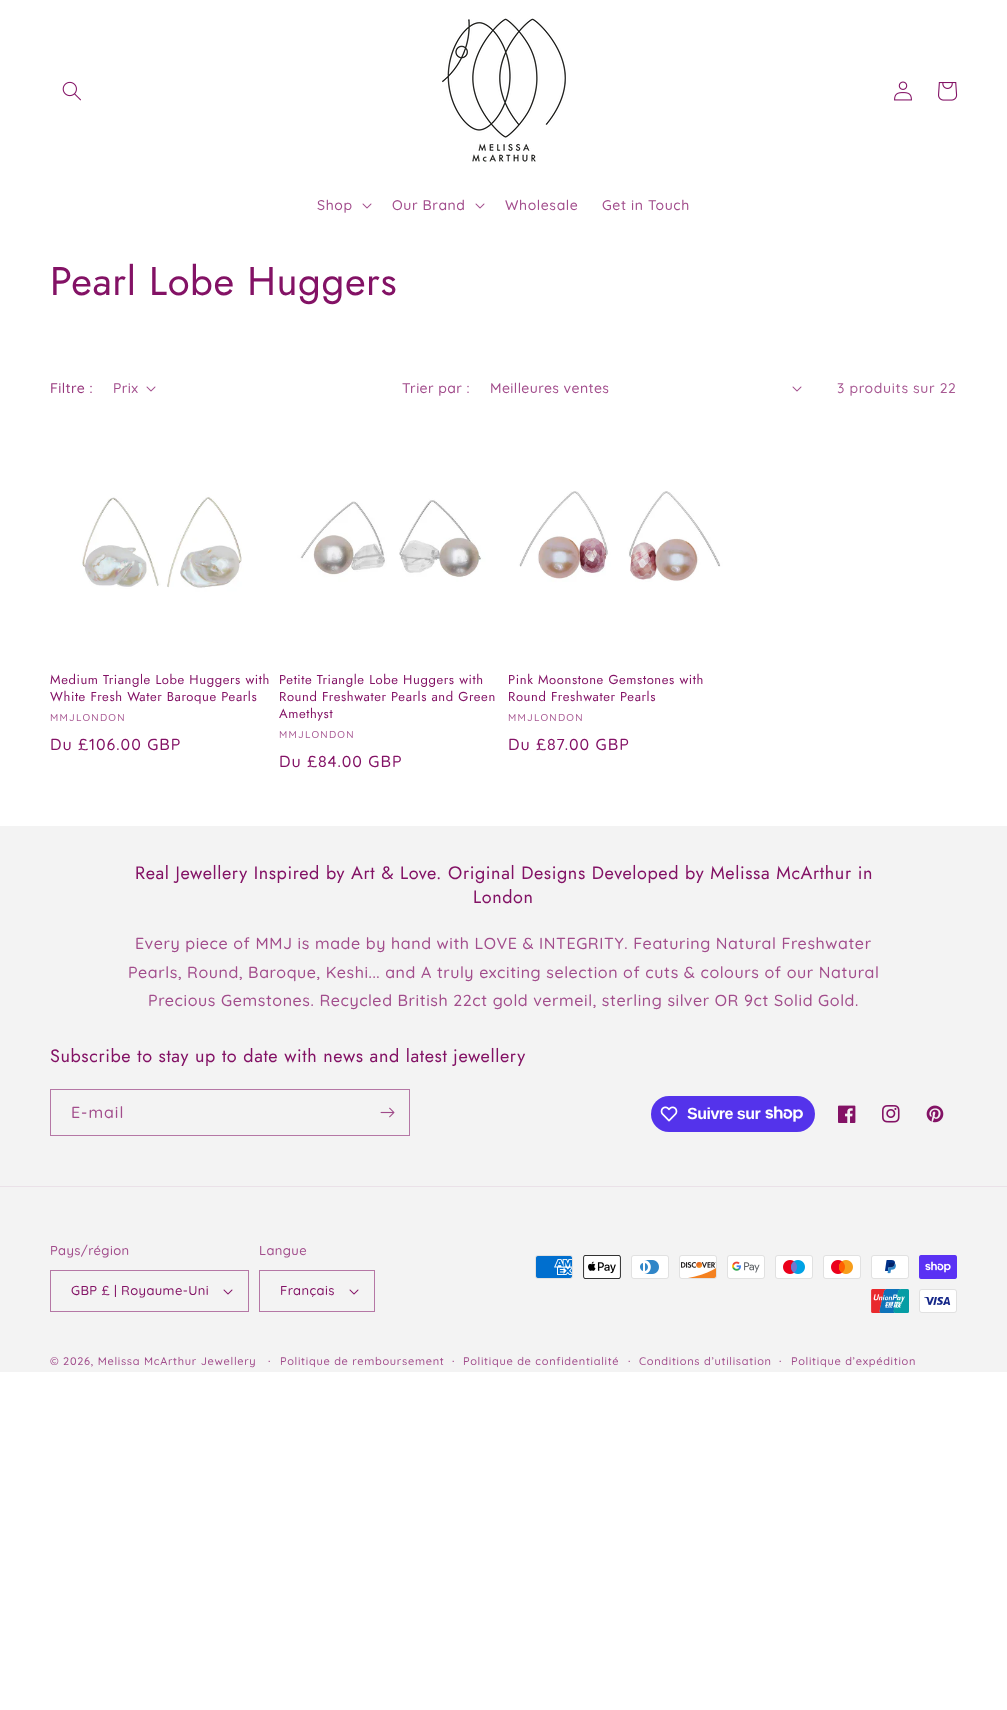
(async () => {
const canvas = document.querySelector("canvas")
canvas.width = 1007
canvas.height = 1710
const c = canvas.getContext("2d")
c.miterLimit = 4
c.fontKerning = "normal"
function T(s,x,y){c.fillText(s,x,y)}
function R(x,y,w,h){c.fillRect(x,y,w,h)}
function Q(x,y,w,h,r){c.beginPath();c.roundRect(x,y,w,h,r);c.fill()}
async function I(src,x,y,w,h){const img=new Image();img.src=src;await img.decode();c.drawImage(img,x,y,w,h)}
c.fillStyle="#fff"
R(0,0,1007,1710)
await I("1.png",62,81,19,20)
await I("2.png",442,18,124,144)
await I("3.png",894,81,18,20)
await I("4.png",938,82,20,19)
c.letterSpacing="0.6px"
c.font="500 14px Quicksand"
c.fillStyle="#a24d8c"
T("Shop",317,210)
await I("5.png",362,203,10,6)
T("Our Brand",392,210)
await I("5.png",475,203,10,6)
T("Wholesale",505,210)
T("Get in Touch",602,210)
c.font="40px Jost"
c.fillStyle="#831265"
T("Pearl Lobe Huggers",50,295)
c.letterSpacing="0.4px"
c.font="500 14px Quicksand"
c.fillStyle="#96367c"
T("Filtre :",50,393)
c.fillStyle="#a24d8c"
T("Prix",113,393)
await I("5.png",146,386,10,6)
T("Trier par :",402,393)
T("Meilleures ventes",490,393)
await I("5.png",792,386,10,6)
c.letterSpacing="0.6px"
c.fillStyle="#a85993"
T("3 produits sur 22",837,393)
await I("6.png",50,435,221,220)
c.font="13px Jost"
c.fillStyle="#831265"
T("Medium Triangle Lobe Huggers with",50,684)
T("White Fresh Water Baroque Pearls",50,701)
c.letterSpacing="1.25px"
c.font="500 10px Quicksand"
c.fillStyle="#a85993"
T("MMJLONDON",50,721)
c.letterSpacing="1px"
c.font="500 16px Quicksand"
c.fillStyle="#831265"
T("Du £106.00 GBP",50,750)
await I("7.png",279,435,221,220)
c.letterSpacing="0.6px"
c.font="13px Jost"
T("Petite Triangle Lobe Huggers with",279,684)
T("Round Freshwater Pearls and Green",279,701)
T("Amethyst",279,718)
c.letterSpacing="1.25px"
c.font="500 10px Quicksand"
c.fillStyle="#a85993"
T("MMJLONDON",279,738)
c.letterSpacing="1px"
c.font="500 16px Quicksand"
c.fillStyle="#831265"
T("Du £84.00 GBP",279,767)
await I("8.png",508,435,220,220)
c.letterSpacing="0.6px"
c.font="13px Jost"
T("Pink Moonstone Gemstones with",508,684)
T("Round Freshwater Pearls",508,701)
c.letterSpacing="1.25px"
c.font="500 10px Quicksand"
c.fillStyle="#a85993"
T("MMJLONDON",508,721)
c.letterSpacing="1px"
c.font="500 16px Quicksand"
c.fillStyle="#831265"
T("Du £87.00 GBP",508,750)
c.fillStyle="#f3f3f3"
R(0,826,1007,546)
c.letterSpacing="0.6px"
c.font="18px Jost"
c.fillStyle="#831265"
T("Real Jewellery Inspired by Art & Love. Original Designs Developed by Melissa McArthur in",135,879)
T("London",473,903)
c.font="500 16px Quicksand"
c.fillStyle="#a24d8c"
T("Every piece of MMJ is made by hand with LOVE & INTEGRITY. Featuring Natural Freshwater",135,949)
T("Pearls, Round, Baroque, Keshi... and A truly exciting selection of cuts & colours of our Natural",128,978)
T("Precious Gemstones. Recycled British 22ct gold vermeil, sterling silver OR 9ct Solid Gold.",148,1006)
c.font="18px Jost"
c.fillStyle="#831265"
T("Subscribe to stay up to date with news and latest jewellery",50,1062)
c.strokeStyle="#b577a5"
c.strokeRect(50.5,1089.5,359,46)
c.letterSpacing="1px"
c.font="500 16px Quicksand"
c.fillStyle="#a24d8c"
T("E-mail",71,1118)
await I("9.png",380,1107,15,11)
c.fillStyle="#5433eb"
Q(651,1096,164,36,18)
await I("10.png",660,1106,18,16)
c.letterSpacing="-0.5px"
c.font="bold 16px Liberation Sans"
c.fillStyle="#fff"
T("Suivre sur",687,1119)
await I("11.png",765,1106,38,16)
await I("12.png",838,1105,18,18)
await I("13.png",882,1105,18,18)
await I("14.png",926,1105,18,18)
c.fillStyle="#eae1e8"
R(0,1186,1007,1)
c.letterSpacing="0.4px"
c.font="500 13px Quicksand"
c.fillStyle="#a24d8c"
T("Pays/région",50,1255)
await I("15.png",223,1289,10,6)
c.strokeRect(50.5,1270.5,198,41)
c.fillStyle="#831265"
T("GBP £ | Royaume-Uni",71,1295)
c.fillStyle="#a24d8c"
T("Langue",259,1255)
await I("15.png",349,1289,10,6)
c.strokeRect(259.5,1270.5,115,41)
c.fillStyle="#831265"
T("Français",280,1295)
await I("16.png",535,1255,38,24)
await I("17.png",583,1255,38,24)
await I("18.png",631,1255,38,24)
await I("19.png",679,1255,38,24)
await I("20.png",727,1255,38,24)
await I("21.png",775,1255,38,24)
await I("22.png",823,1255,38,24)
await I("23.png",871,1255,38,24)
await I("24.png",919,1255,38,24)
await I("25.png",871,1289,38,24)
await I("26.png",919,1289,38,24)
c.letterSpacing="0.7px"
c.font="500 11px Quicksand"
c.fillStyle="#a24d8c"
T("© 2026, Melissa McArthur Jewellery",50,1365)
c.font="500 12px Quicksand"
T("·",268,1365)
c.font="500 11px Quicksand"
T("Politique de remboursement",280,1365)
c.font="500 12px Quicksand"
T("·",452,1365)
c.font="500 11px Quicksand"
T("Politique de confidentialité",463,1365)
c.font="500 12px Quicksand"
T("·",628,1365)
c.font="500 11px Quicksand"
T("Conditions d’utilisation",639,1365)
c.font="500 12px Quicksand"
T("·",779,1365)
c.font="500 11px Quicksand"
T("Politique d’expédition",791,1365)
})()
